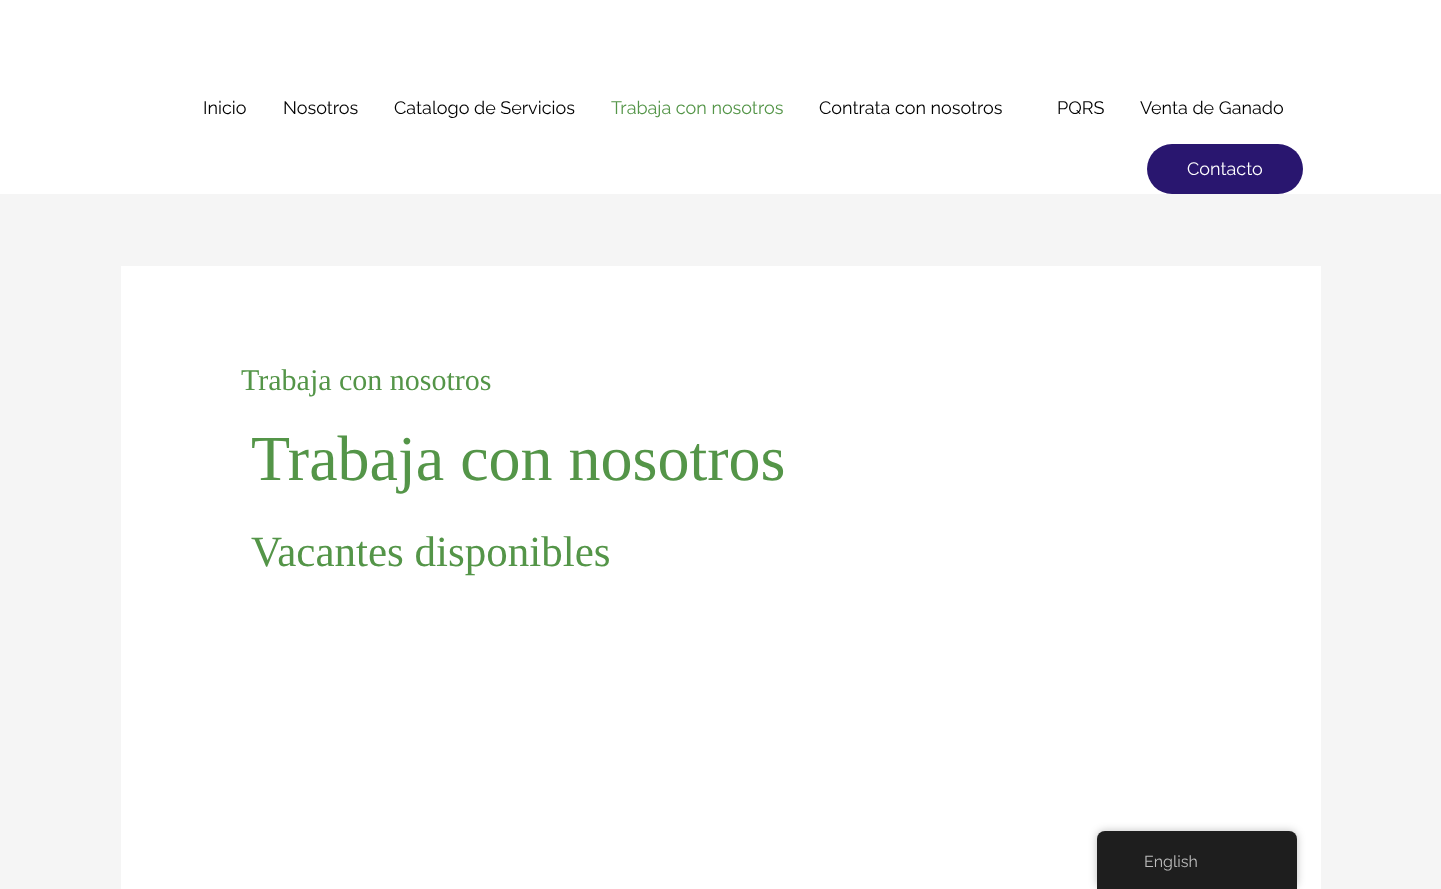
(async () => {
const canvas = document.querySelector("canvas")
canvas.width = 1441
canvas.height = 889
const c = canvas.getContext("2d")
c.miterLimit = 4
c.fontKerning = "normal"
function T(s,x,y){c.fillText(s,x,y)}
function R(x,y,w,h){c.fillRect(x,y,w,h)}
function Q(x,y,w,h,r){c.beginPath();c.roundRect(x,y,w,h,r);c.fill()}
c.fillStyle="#f5f5f5"
R(0,0,1441,889)
c.fillStyle="#fff"
R(0,0,1441,194)
c.font="18px Raleway"
c.fillStyle="#000"
T("Inicio",203,114)
T("Nosotros",283,114)
T("Catalogo de Servicios",394,114)
c.fillStyle="#549548"
T("Trabaja con nosotros",611,114)
c.fillStyle="#000"
T("Contrata con nosotros",819,114)
T("PQRS",1057,114)
T("Venta de Ganado",1140,114)
c.fillStyle="#29166f"
Q(1147,144,156,50,25)
c.fillStyle="#fff"
T("Contacto",1187,175)
R(121,266,1200,623)
c.font="30px Liberation Serif"
c.fillStyle="#549548"
T("Trabaja con nosotros",241,390)
c.font="64px Liberation Serif"
T("Trabaja con nosotros",251,480)
c.font="43px Liberation Serif"
T("Vacantes disponibles",251,566)
c.fillStyle="#00000040"
c.filter="blur(4px)"
c.beginPath()
c.roundRect(1097,831,200,58,8)
c.fill()
c.filter="none"
c.fillStyle="#1e1e1e"
c.beginPath()
c.roundRect(1097,831,200,58,[8,8,0,0])
c.fill()
c.font="16px Raleway"
c.fillStyle="#bdbdbd"
T("English",1144,867)
})()
